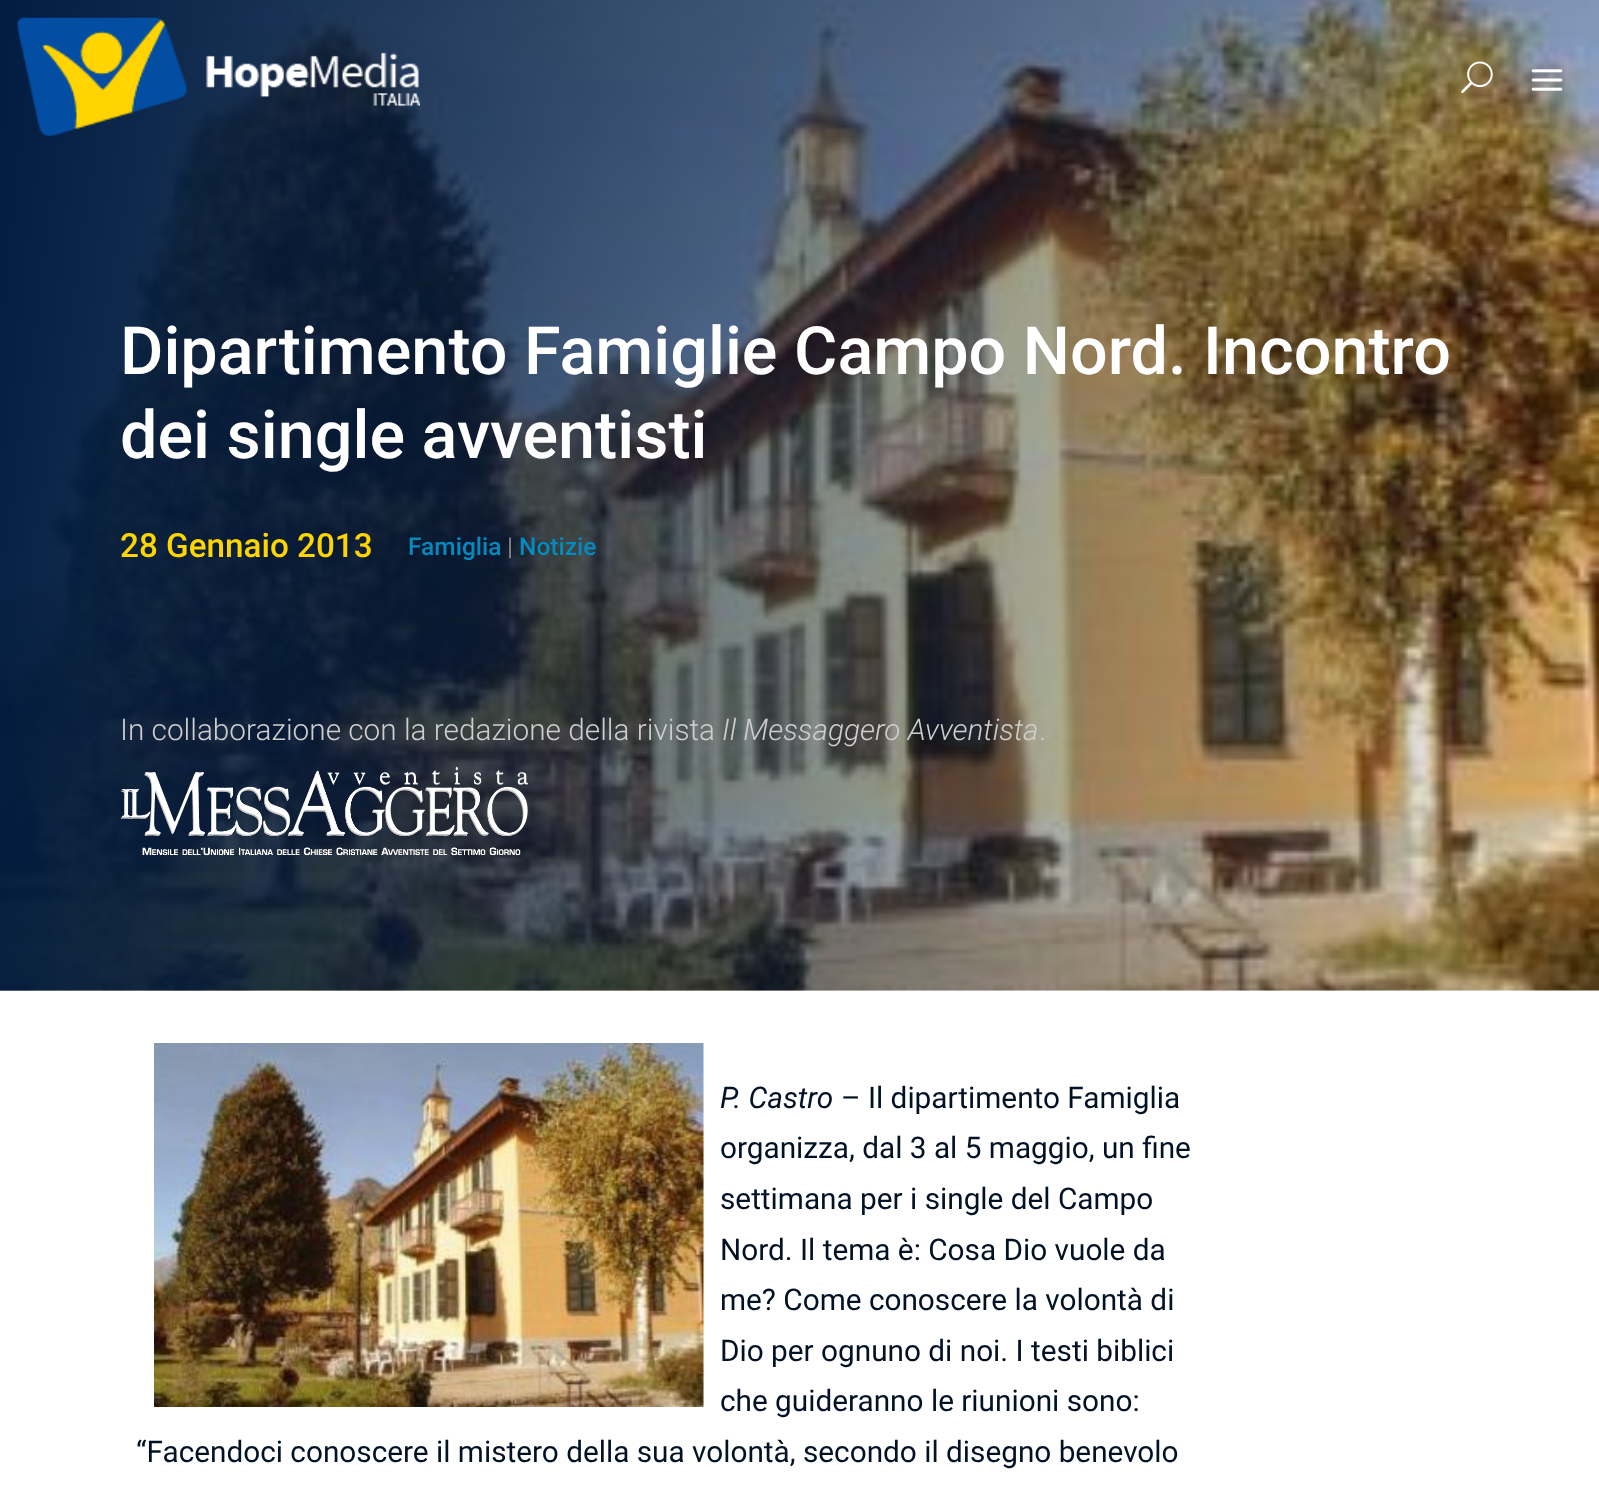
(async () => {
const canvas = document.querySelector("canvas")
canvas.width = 1599
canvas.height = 1490
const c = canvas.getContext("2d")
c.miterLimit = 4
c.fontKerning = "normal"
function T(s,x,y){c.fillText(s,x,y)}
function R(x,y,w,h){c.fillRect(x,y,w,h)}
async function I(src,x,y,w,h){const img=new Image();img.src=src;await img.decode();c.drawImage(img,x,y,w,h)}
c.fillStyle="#fff"
R(0,0,1599,1490)
await I("4.png",0,0,1599,991)
await I("1.png",17,17,403,120)
await I("2.png",1461,61,32,33)
await I("3.png",1531,69,32,22)
c.font="500 66.5px Roboto"
T("Dipartimento Famiglie Campo Nord. Incontro",120,374)
T("dei single avventisti",120,458)
c.font="500 33.25px Roboto"
c.fillStyle="#ffd500"
T("28 Gennaio 2013",120,557)
c.font="500 24.5px Roboto"
c.fillStyle="#048abf"
T("Famiglia",408,555)
c.fillStyle="#807e81"
T("|",507,555)
c.fillStyle="#048abf"
T("Notizie",519,555)
c.font="300 29.75px Roboto"
c.fillStyle="#cecece"
T("In collaborazione con la redazione della rivista",120,740)
c.font="italic 300 29.75px Roboto"
T("Il Messaggero Avventista",722,740)
c.font="300 29.75px Roboto"
T(".",1039,740)
await I("5.png",120,766,409,90)
await I("6.png",154,1043,550,364)
c.font="italic 29.75px Roboto"
c.fillStyle="#011126"
T("P. Castro",720,1108)
c.font="29.75px Roboto"
T("– Il dipartimento Famiglia",841,1108)
T("organizza, dal 3 al 5 maggio, un fine",720,1158)
T("settimana per i single del Campo",720,1209)
T("Nord. Il tema è: Cosa Dio vuole da",720,1260)
T("me? Come conoscere la volontà di",720,1310)
T("Dio per ognuno di noi. I testi biblici",720,1361)
T("che guideranno le riunioni sono:",720,1411)
T("“Facendoci conoscere il mistero della sua volontà, secondo il disegno benevolo",136,1462)
})()
